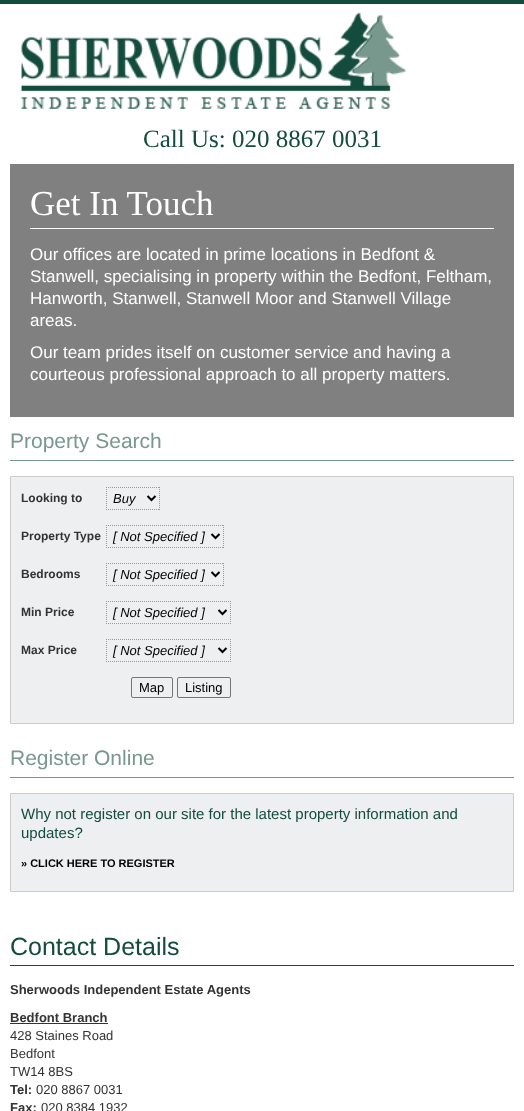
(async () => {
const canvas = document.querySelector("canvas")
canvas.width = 524
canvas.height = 1111
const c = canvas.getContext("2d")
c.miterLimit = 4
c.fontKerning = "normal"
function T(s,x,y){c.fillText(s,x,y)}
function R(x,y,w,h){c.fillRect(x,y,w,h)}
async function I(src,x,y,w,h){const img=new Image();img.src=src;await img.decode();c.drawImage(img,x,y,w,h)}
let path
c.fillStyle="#fff"
R(0,0,524,1111)
c.fillStyle="#134c3d"
R(0,0,524,4)
await I("1.png",21,12,385,97)
c.font="25px Liberation Serif"
T("Call Us: 020 8867 0031",143,147)
c.fillStyle="#808080"
R(10,164,504,253)
c.fillStyle="#fff"
R(30,228,464,1)
c.font="35px Liberation Serif"
T("Get In Touch",30,215)
c.font="17px Liberation Sans"
T("Our offices are located in prime locations in Bedfont &",30,260)
T("Stanwell, specialising in property within the Bedfont, Feltham,",30,282)
T("Hanworth, Stanwell, Stanwell Moor and Stanwell Village",30,304)
T("areas.",30,326)
T("Our team prides itself on customer service and having a",30,358)
T("courteous professional approach to all property matters.",30,380)
c.fillStyle="#78988d"
R(10,460,504,1)
c.font="21px Liberation Sans"
T("Property Search",10,448)
c.fillStyle="#eeeff1"
c.beginPath()
c.rect(10.5,476.5,503,247)
c.fill()
c.strokeStyle="#ccc"
c.stroke()
c.font="bold 12px Liberation Sans"
c.fillStyle="#333"
T("Looking to",21,502)
path = new Path2D("M106 487.5h54m-.5-.5v23m-53.5-.5h54m-53.5-22.5v23")
c.strokeStyle="#999"
c.setLineDash([1,1])
c.stroke(path)
path = new Path2D("M147.5 496l4 4l4-4")
c.strokeStyle="#000"
c.lineWidth=2
c.setLineDash([])
c.stroke(path)
c.font="italic 13px Liberation Sans"
c.fillStyle="#000"
T("Buy",113,503)
c.font="bold 12px Liberation Sans"
c.fillStyle="#333"
T("Property Type",21,540)
path = new Path2D("M106 525.5h118")
c.strokeStyle="#999"
c.lineWidth=1
c.setLineDash([1,1])
c.stroke(path)
path = new Path2D("M223.5 525v23")
c.stroke(path)
path = new Path2D("M106 547.5h118")
c.stroke(path)
path = new Path2D("M106.5 525v23")
c.stroke(path)
path = new Path2D("M211.5 534l4 4l4-4")
c.strokeStyle="#000"
c.lineWidth=2
c.setLineDash([])
c.stroke(path)
c.font="italic 13px Liberation Sans"
c.fillStyle="#000"
T("[ Not Specified ]",113,541)
c.font="bold 12px Liberation Sans"
c.fillStyle="#333"
T("Bedrooms",21,578)
path = new Path2D("M106 563.5h118")
c.strokeStyle="#999"
c.lineWidth=1
c.setLineDash([1,1])
c.stroke(path)
path = new Path2D("M223.5 563v23")
c.stroke(path)
path = new Path2D("M106 585.5h118")
c.stroke(path)
path = new Path2D("M106.5 563v23")
c.stroke(path)
path = new Path2D("M211.5 572l4 4l4-4")
c.strokeStyle="#000"
c.lineWidth=2
c.setLineDash([])
c.stroke(path)
c.font="italic 13px Liberation Sans"
c.fillStyle="#000"
T("[ Not Specified ]",113,579)
c.font="bold 12px Liberation Sans"
c.fillStyle="#333"
T("Min Price",21,616)
path = new Path2D("M106 601.5h125")
c.strokeStyle="#999"
c.lineWidth=1
c.setLineDash([1,1])
c.stroke(path)
path = new Path2D("M230.5 601v23")
c.stroke(path)
path = new Path2D("M106 623.5h125")
c.stroke(path)
path = new Path2D("M106.5 601v23")
c.stroke(path)
path = new Path2D("M218.5 610l4 4l4-4")
c.strokeStyle="#000"
c.lineWidth=2
c.setLineDash([])
c.stroke(path)
c.font="italic 13px Liberation Sans"
c.fillStyle="#000"
T("[ Not Specified ]",113,617)
c.font="bold 12px Liberation Sans"
c.fillStyle="#333"
T("Max Price",21,654)
path = new Path2D("M106 639.5h125")
c.strokeStyle="#999"
c.lineWidth=1
c.setLineDash([1,1])
c.stroke(path)
path = new Path2D("M230.5 639v23")
c.stroke(path)
path = new Path2D("M106 661.5h125")
c.stroke(path)
path = new Path2D("M106.5 639v23")
c.stroke(path)
path = new Path2D("M218.5 648l4 4l4-4")
c.strokeStyle="#000"
c.lineWidth=2
c.setLineDash([])
c.stroke(path)
c.font="italic 13px Liberation Sans"
c.fillStyle="#000"
T("[ Not Specified ]",113,655)
c.beginPath()
c.roundRect(131.5,677.5,41,20,1.5)
c.strokeStyle="#767676"
c.lineWidth=1
c.stroke()
c.font="13px Liberation Sans"
T("Map",139,692)
c.beginPath()
c.roundRect(177.5,677.5,53,20,1.5)
c.stroke()
T("Listing",185,692)
c.fillStyle="#78988d"
R(10,777,504,1)
c.font="21px Liberation Sans"
T("Register Online",10,765)
c.fillStyle="#eeeff1"
c.beginPath()
c.rect(10.5,793.5,503,98)
c.fill()
c.strokeStyle="#ccc"
c.stroke()
c.font="15px Liberation Sans"
c.fillStyle="#134c3d"
T("Why not register on our site for the latest property information and",21,819)
T("updates?",21,838)
c.font="bold 11px Liberation Sans"
c.fillStyle="#000"
T("» CLICK HERE TO REGISTER",21,867)
c.fillStyle="#134c3d"
R(10,965,504,1)
c.font="25px Liberation Sans"
T("Contact Details",10,955)
c.font="bold 13px Liberation Sans"
c.fillStyle="#333"
T("Sherwoods Independent Estate Agents",10,994)
T("Bedfont Branch",10,1022)
R(10,1023,98,1)
c.font="13px Liberation Sans"
T("428 Staines Road",10,1040)
T("Bedfont",10,1058)
T("TW14 8BS",10,1076)
c.font="bold 13px Liberation Sans"
T("Tel:",10,1094)
c.font="13px Liberation Sans"
T("020 8867 0031",36,1094)
c.font="bold 13px Liberation Sans"
T("Fax:",10,1112)
c.font="13px Liberation Sans"
T("020 8384 1932",41,1112)
})()
